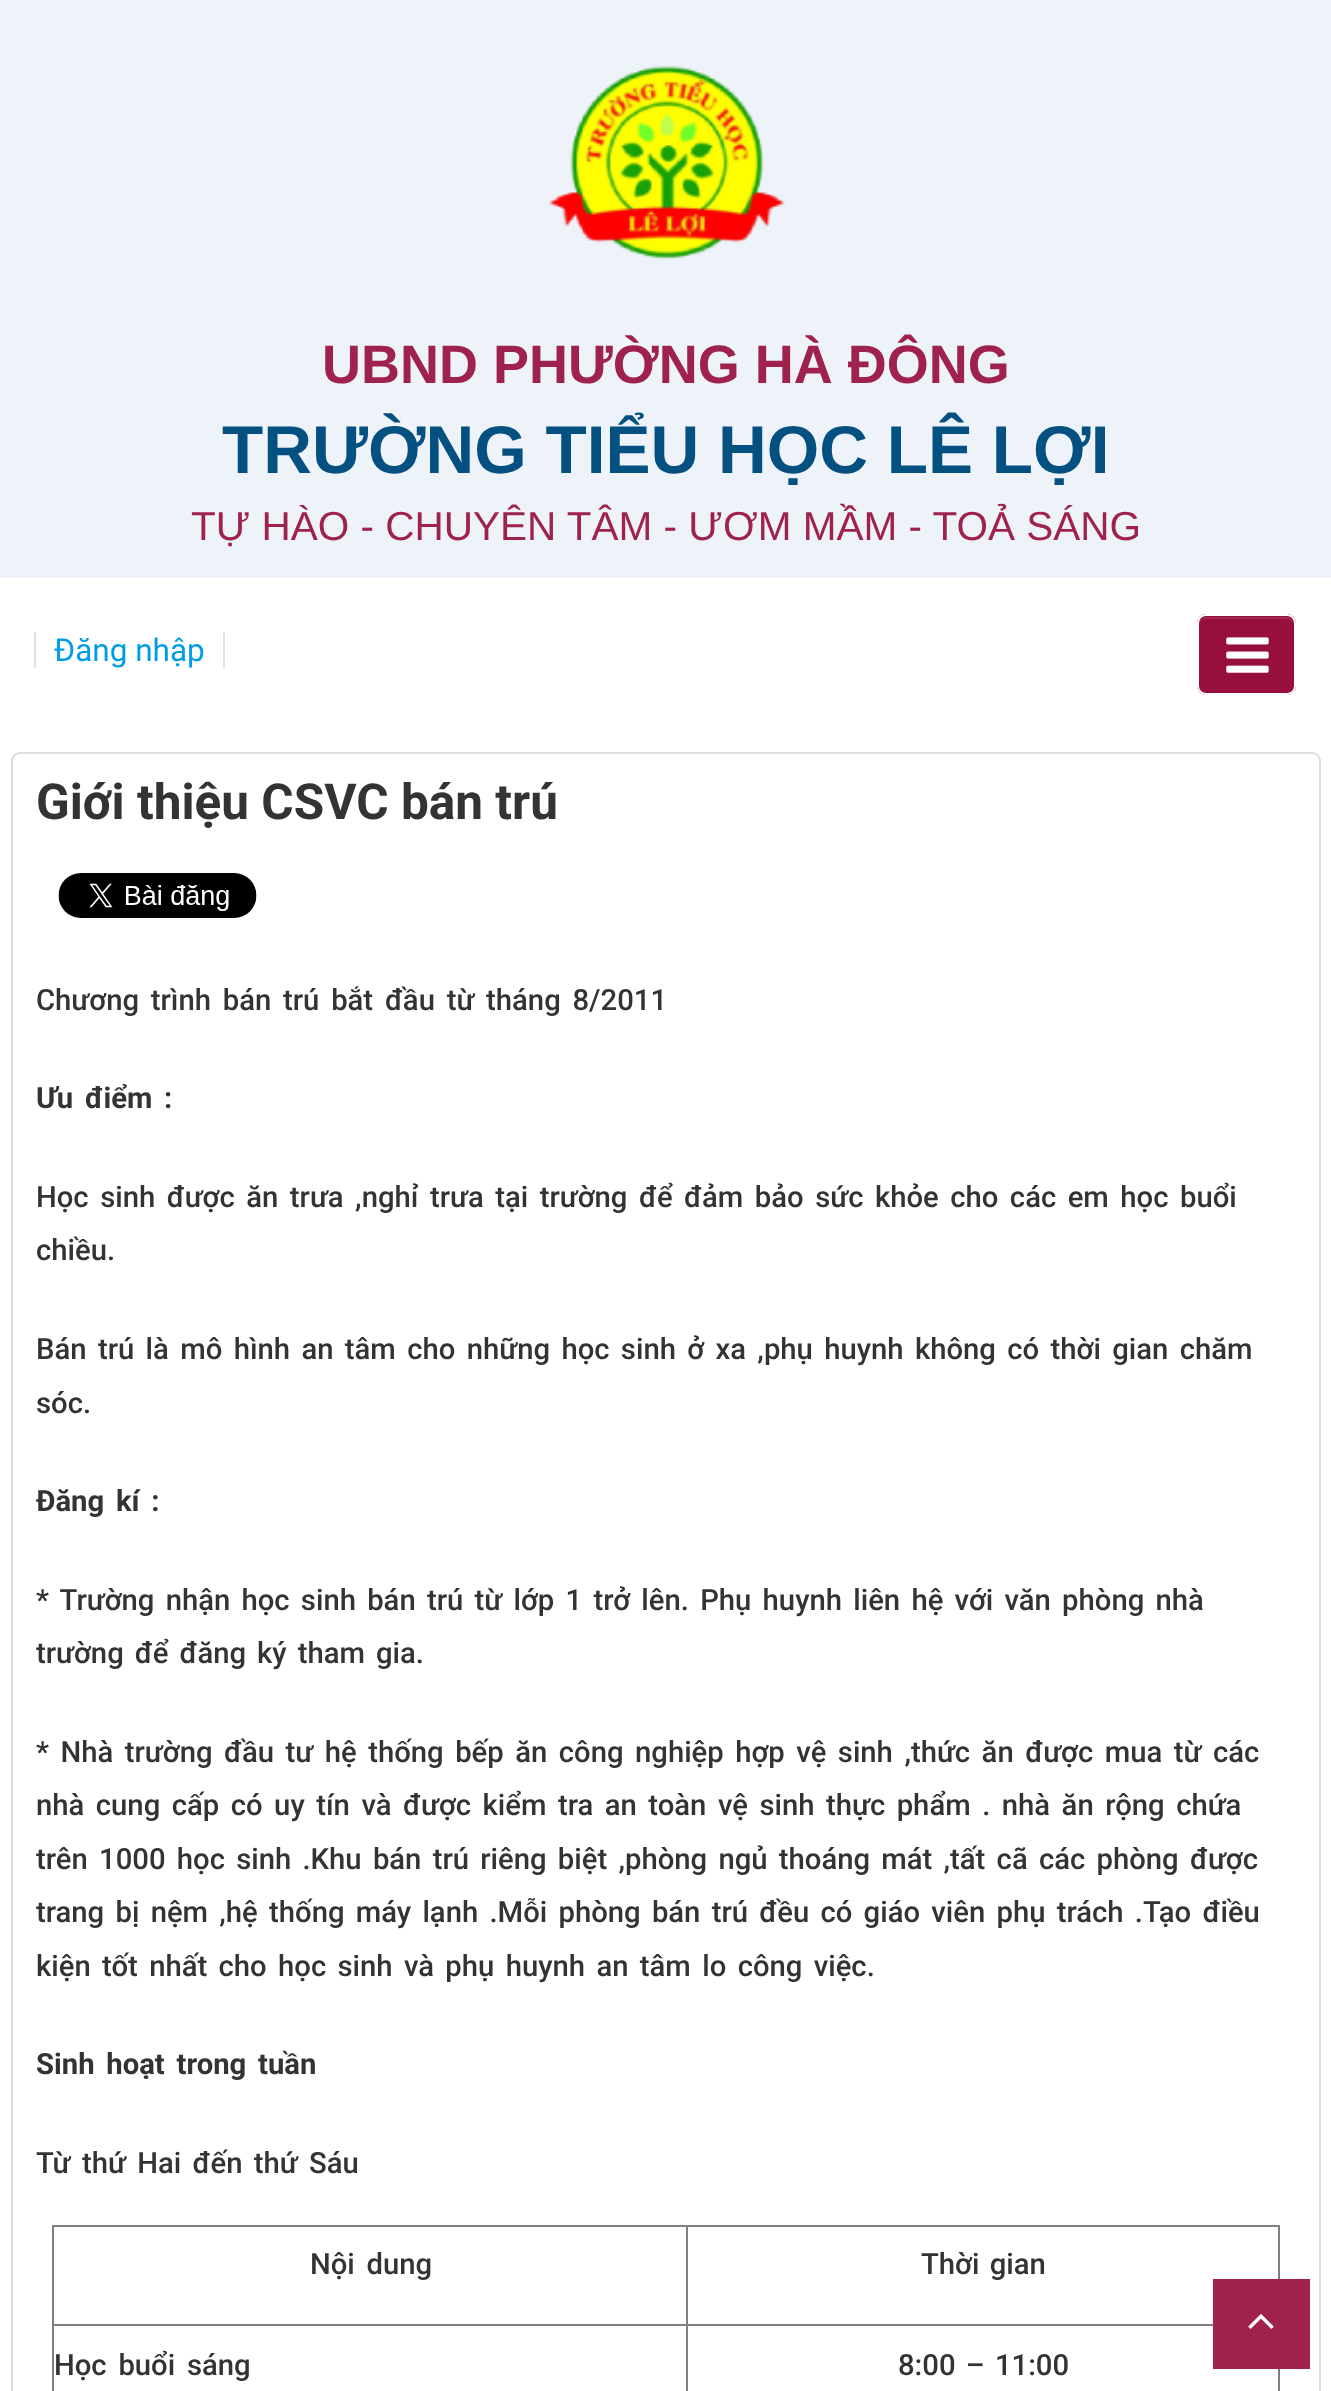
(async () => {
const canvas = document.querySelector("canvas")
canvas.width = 1331
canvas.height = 2391
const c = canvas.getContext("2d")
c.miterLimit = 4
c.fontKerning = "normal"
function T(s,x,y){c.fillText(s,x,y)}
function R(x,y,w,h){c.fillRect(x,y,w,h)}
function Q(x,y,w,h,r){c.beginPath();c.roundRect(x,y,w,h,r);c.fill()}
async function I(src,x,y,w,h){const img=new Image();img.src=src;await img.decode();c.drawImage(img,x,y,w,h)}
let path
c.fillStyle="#eef3fa"
R(0,0,1331,2391)
await I("1.png",549,66,237,194)
c.font="bold 54px Liberation Sans"
c.fillStyle="#9f224e"
T("UBND PHƯỜNG HÀ ĐÔNG",322,383)
c.font="bold 67.5px Liberation Sans"
c.fillStyle="#045081"
T("TRƯỜNG TIỂU HỌC LÊ LỢI",222,473)
c.font="40.5px Liberation Sans"
c.fillStyle="#9f224e"
T("TỰ HÀO - CHUYÊN TÂM - ƯƠM MẦM - TOẢ SÁNG",191,540)
c.fillStyle="#fff"
R(0,578,1331,1813)
c.font="31.5px Roboto"
c.fillStyle="#009de6"
T("Đăng nhập",54,661)
c.fillStyle="#e2e2e2"
R(223,632,2,36)
R(34,632,2,36)
c.fillStyle="#970f3f"
Q(1197,614,99,81,9)
c.fillStyle="#a12752"
path = new Path2D("M1206 619h81c4 0 7 3 7 7c0-12-11-9-20-9h-54c-10 0-21-3-21 9c0-4 3-7 7-7z")
c.fill(path)
c.beginPath()
c.roundRect(1198,615,97,79,8)
c.strokeStyle="#fff"
c.lineWidth=2
c.stroke()
await I("2.png",1226,637,43,36)
c.beginPath()
c.roundRect(12,753,1308,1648,8)
c.strokeStyle="#ddd"
c.stroke()
c.font="bold 49.5px Roboto"
c.fillStyle="#333"
T("Giới thiệu CSVC bán trú",36,819)
await I("3.png",58,873,199,45)
c.wordSpacing="4.5px"
c.font="500 29.25px Roboto"
T("Chương trình bán trú bắt đầu từ tháng 8/2011",36,1010)
c.font="bold 29.25px Roboto"
T("Ưu điểm :",36,1108)
c.wordSpacing="4.25px"
c.font="500 29.25px Roboto"
T("Học sinh được ăn trưa ,nghỉ trưa tại trường để đảm bảo sức khỏe cho các em học buổi",36,1207)
c.wordSpacing="0px"
T("chiều.",36,1260)
c.wordSpacing="4.1px"
T("Bán trú là mô hình an tâm cho những học sinh ở xa ,phụ huynh không có thời gian chăm",36,1359)
c.wordSpacing="0px"
T("sóc.",36,1413)
c.wordSpacing="4.5px"
c.font="bold 29.25px Roboto"
T("Đăng kí :",36,1511)
c.wordSpacing="4px"
c.font="500 29.25px Roboto"
T("* Trường nhận học sinh bán trú từ lớp 1 trở lên. Phụ huynh liên hệ với văn phòng nhà",36,1610)
c.wordSpacing="3.75px"
T("trường để đăng ký tham gia.",36,1663)
c.wordSpacing="4.25px"
T("* Nhà trường đầu tư hệ thống bếp ăn công nghiệp hợp vệ sinh ,thức ăn được mua từ các",36,1762)
T("nhà cung cấp có uy tín và được kiểm tra an toàn vệ sinh thực phẩm . nhà ăn rộng chứa",36,1815)
c.wordSpacing="4px"
T("trên 1000 học sinh .Khu bán trú riêng biệt ,phòng ngủ thoáng mát ,tất cã các phòng được",36,1869)
T("trang bị nệm ,hệ thống máy lạnh .Mỗi phòng bán trú đều có giáo viên phụ trách .Tạo điều",36,1922)
c.wordSpacing="4.1px"
T("kiện tốt nhất cho học sinh và phụ huynh an tâm lo công việc.",36,1976)
c.wordSpacing="4.5px"
c.font="bold 29.25px Roboto"
T("Sinh hoạt trong tuần",36,2074)
c.wordSpacing="4.1px"
c.font="500 29.25px Roboto"
T("Từ thứ Hai đến thứ Sáu",36,2173)
c.fillStyle="#808080"
R(52,2225,1228,2)
R(1278,2225,2,166)
R(52,2225,2,166)
c.wordSpacing="4.5px"
c.fillStyle="#333"
T("Nội dung",310,2274)
c.fillStyle="#808080"
R(686,2324,527,2)
R(686,2324,2,67)
R(52,2324,637,2)
R(686,2225,2,102)
c.wordSpacing="3px"
c.fillStyle="#333"
T("Thời gian",921,2274)
c.wordSpacing="4.5px"
T("Học buổi sáng",54,2375)
c.wordSpacing="3px"
T("8:00 – 11:00",898,2375)
c.fillStyle="#9f224e"
R(1213,2279,97,90)
await I("4.png",1248,2314,26,15)
})()
